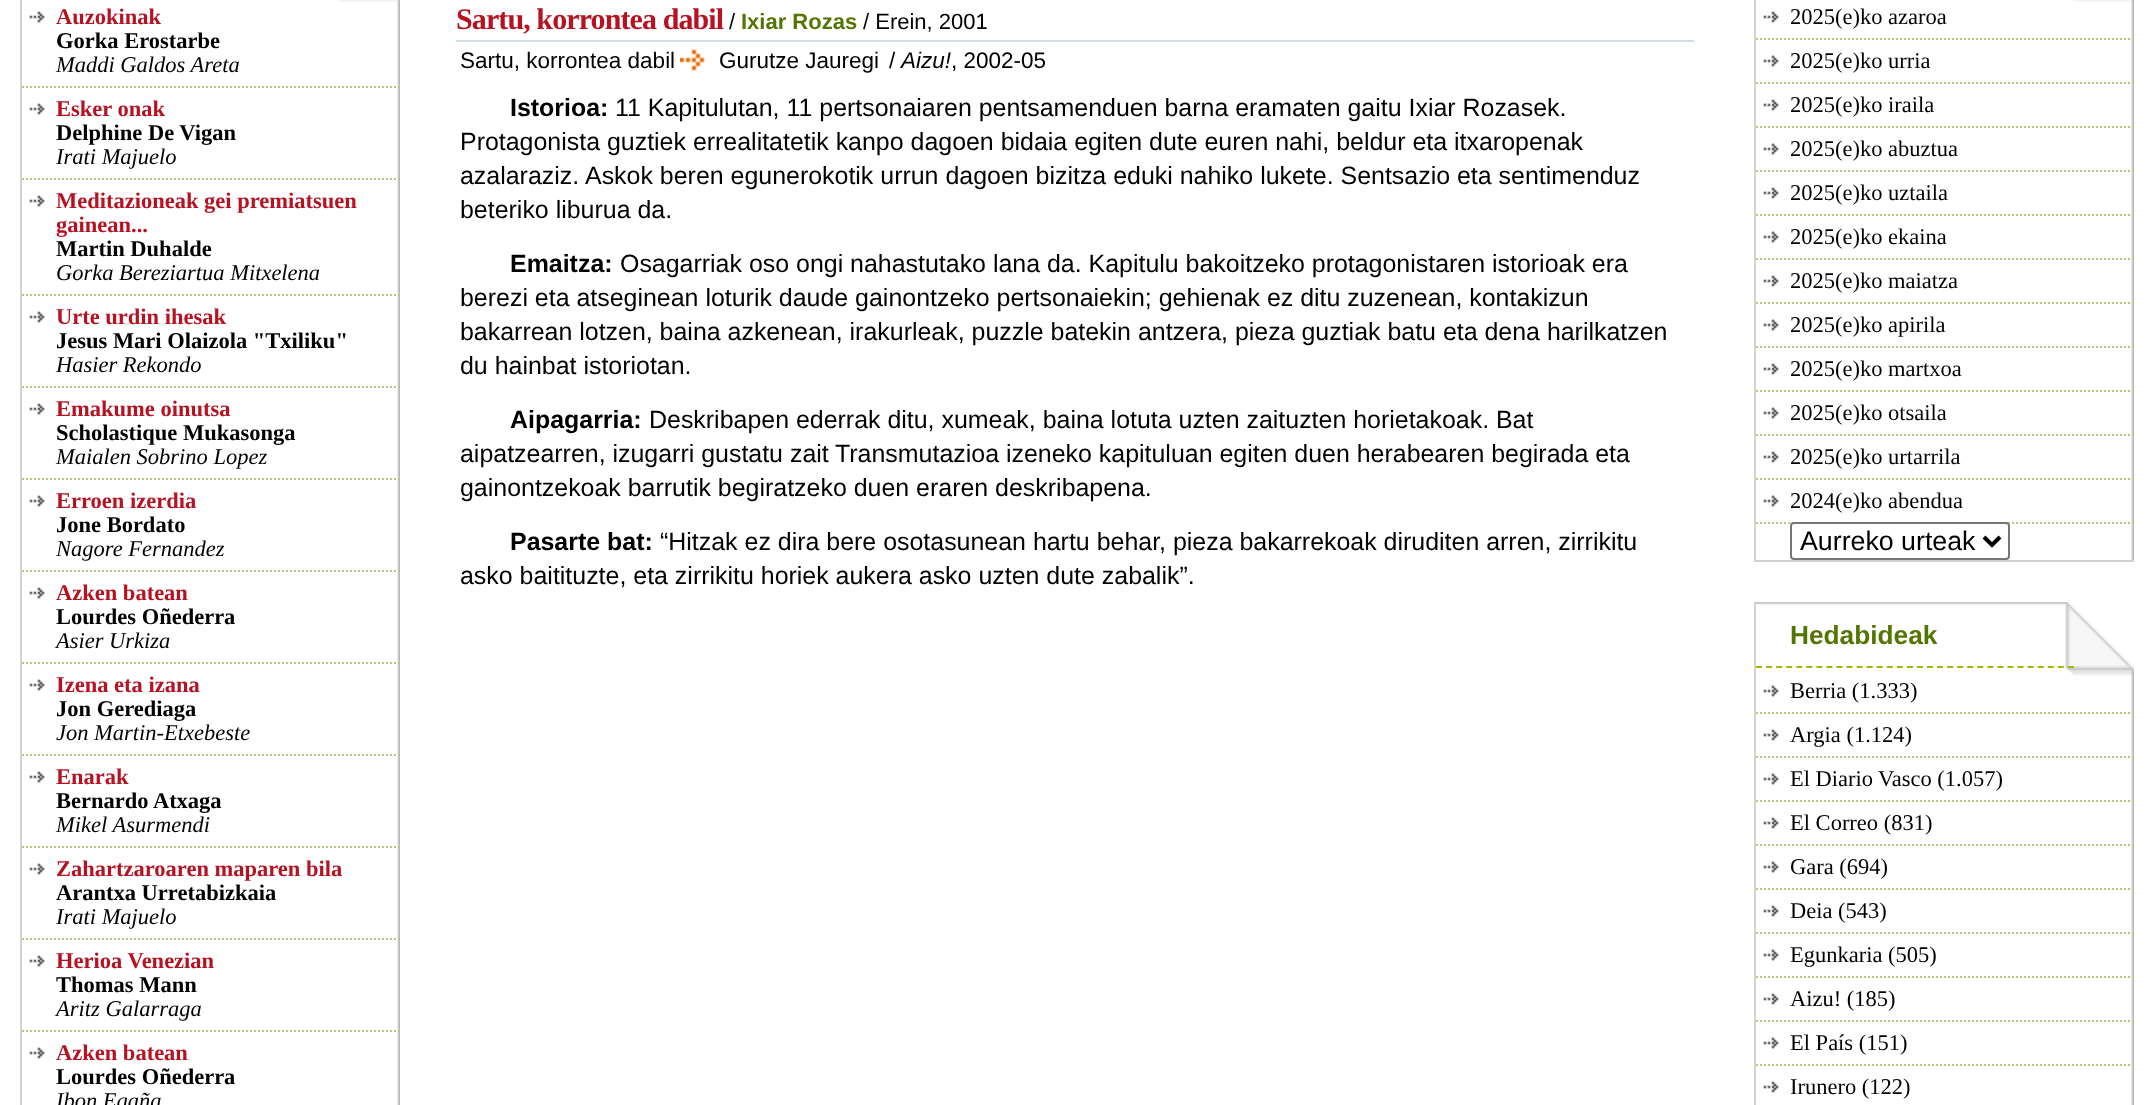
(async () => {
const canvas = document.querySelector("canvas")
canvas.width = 2154
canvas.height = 1105
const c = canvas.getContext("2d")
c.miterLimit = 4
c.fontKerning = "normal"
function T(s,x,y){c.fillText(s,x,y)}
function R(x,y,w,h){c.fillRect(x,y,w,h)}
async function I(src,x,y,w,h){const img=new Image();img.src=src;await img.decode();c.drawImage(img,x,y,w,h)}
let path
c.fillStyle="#fff"
R(0,0,2154,1105)
await I("1.png",338,0,62,1105)
c.fillStyle="#d2d2d2"
R(20,0,2,1105)
await I("2.png",29,11,16,12)
path = new Path2D("M22 87h378")
c.strokeStyle="#bac67f"
c.lineWidth=2
c.setLineDash([2,2])
c.stroke(path)
c.font="bold 22.5px Liberation Serif"
c.fillStyle="#b71221"
T("Auzokinak",56,24)
c.fillStyle="#000"
T("Gorka Erostarbe",56,48)
c.font="italic 22.5px Liberation Serif"
T("Maddi Galdos Areta",56,72)
await I("2.png",29,103,16,12)
path = new Path2D("M22 179h378")
c.stroke(path)
c.font="bold 22.5px Liberation Serif"
c.fillStyle="#b71221"
T("Esker onak",56,116)
c.fillStyle="#000"
T("Delphine De Vigan",56,140)
c.font="italic 22.5px Liberation Serif"
T("Irati Majuelo",56,164)
await I("2.png",29,195,16,12)
path = new Path2D("M22 295h378")
c.stroke(path)
c.font="bold 22.5px Liberation Serif"
c.fillStyle="#b71221"
T("Meditazioneak gei premiatsuen",56,208)
T("gainean...",56,232)
c.fillStyle="#000"
T("Martin Duhalde",56,256)
c.font="italic 22.5px Liberation Serif"
T("Gorka Bereziartua Mitxelena",56,280)
await I("2.png",29,311,16,12)
path = new Path2D("M22 387h378")
c.stroke(path)
c.font="bold 22.5px Liberation Serif"
c.fillStyle="#b71221"
T("Urte urdin ihesak",56,324)
c.fillStyle="#000"
T("Jesus Mari Olaizola \"Txiliku\"",56,348)
c.font="italic 22.5px Liberation Serif"
T("Hasier Rekondo",56,372)
await I("2.png",29,403,16,12)
path = new Path2D("M22 479h378")
c.stroke(path)
c.font="bold 22.5px Liberation Serif"
c.fillStyle="#b71221"
T("Emakume oinutsa",56,416)
c.fillStyle="#000"
T("Scholastique Mukasonga",56,440)
c.font="italic 22.5px Liberation Serif"
T("Maialen Sobrino Lopez",56,464)
await I("2.png",29,495,16,12)
path = new Path2D("M22 571h378")
c.stroke(path)
c.font="bold 22.5px Liberation Serif"
c.fillStyle="#b71221"
T("Erroen izerdia",56,508)
c.fillStyle="#000"
T("Jone Bordato",56,532)
c.font="italic 22.5px Liberation Serif"
T("Nagore Fernandez",56,556)
await I("2.png",29,587,16,12)
path = new Path2D("M22 663h378")
c.stroke(path)
c.font="bold 22.5px Liberation Serif"
c.fillStyle="#b71221"
T("Azken batean",56,600)
c.fillStyle="#000"
T("Lourdes Oñederra",56,624)
c.font="italic 22.5px Liberation Serif"
T("Asier Urkiza",56,648)
await I("2.png",29,679,16,12)
path = new Path2D("M22 755h378")
c.stroke(path)
c.font="bold 22.5px Liberation Serif"
c.fillStyle="#b71221"
T("Izena eta izana",56,692)
c.fillStyle="#000"
T("Jon Gerediaga",56,716)
c.font="italic 22.5px Liberation Serif"
T("Jon Martin-Etxebeste",56,740)
await I("2.png",29,771,16,12)
path = new Path2D("M22 847h378")
c.stroke(path)
c.font="bold 22.5px Liberation Serif"
c.fillStyle="#b71221"
T("Enarak",56,784)
c.fillStyle="#000"
T("Bernardo Atxaga",56,808)
c.font="italic 22.5px Liberation Serif"
T("Mikel Asurmendi",56,832)
await I("2.png",29,863,16,12)
path = new Path2D("M22 939h378")
c.stroke(path)
c.font="bold 22.5px Liberation Serif"
c.fillStyle="#b71221"
T("Zahartzaroaren maparen bila",56,876)
c.fillStyle="#000"
T("Arantxa Urretabizkaia",56,900)
c.font="italic 22.5px Liberation Serif"
T("Irati Majuelo",56,924)
await I("2.png",29,955,16,12)
path = new Path2D("M22 1031h378")
c.stroke(path)
c.font="bold 22.5px Liberation Serif"
c.fillStyle="#b71221"
T("Herioa Venezian",56,968)
c.fillStyle="#000"
T("Thomas Mann",56,992)
c.font="italic 22.5px Liberation Serif"
T("Aritz Galarraga",56,1016)
await I("2.png",29,1047,16,12)
c.font="bold 22.5px Liberation Serif"
c.fillStyle="#b71221"
T("Azken batean",56,1060)
c.fillStyle="#000"
T("Lourdes Oñederra",56,1084)
c.font="italic 22.5px Liberation Serif"
T("Ibon Egaña",56,1108)
c.fillStyle="#d2dde4"
R(456,40,1238,2)
c.letterSpacing="-0.9px"
c.font="bold 30px Liberation Serif"
c.fillStyle="#b71221"
T("Sartu, korrontea dabil",456,29)
c.letterSpacing="0px"
c.font="22px Liberation Sans"
c.fillStyle="#000"
T("/",729,29)
c.font="bold 22px Liberation Sans"
c.fillStyle="#537602"
T("Ixiar Rozas",741,29)
c.font="22px Liberation Sans"
c.fillStyle="#000"
T("/ Erein, 2001",863,29)
c.font="22.5px Liberation Sans"
T("Sartu, korrontea dabil",460,68)
await I("3.png",680,49,25,22)
T("Gurutze Jauregi",719,68)
T("/",889,68)
c.font="italic 22.5px Liberation Sans"
T("Aizu!",901,68)
c.font="22.5px Liberation Sans"
T(", 2002-05",951,68)
c.font="bold 24.95px Liberation Sans"
T("Istorioa:",510,116)
c.font="24.95px Liberation Sans"
T("11 Kapitulutan, 11 pertsonaiaren pentsamenduen barna eramaten gaitu Ixiar Rozasek.",615,116)
T("Protagonista guztiek errealitatetik kanpo dagoen bidaia egiten dute euren nahi, beldur eta itxaropenak",460,150)
T("azalaraziz.",460,184)
T("Askok beren egunerokotik urrun dagoen bizitza eduki nahiko lukete. Sentsazio eta sentimenduz",585,184)
T("beteriko liburua da.",460,218)
c.font="bold 24.95px Liberation Sans"
T("Emaitza:",510,272)
c.font="24.95px Liberation Sans"
T("Osagarriak oso ongi nahastutako lana da. Kapitulu bakoitzeko protagonistaren istorioak era",620,272)
T("berezi eta atseginean loturik daude gainontzeko pertsonaiekin; gehienak ez ditu zuzenean, kontakizun",460,306)
T("bakarrean lotzen, baina azkenean, irakurleak, puzzle batekin antzera, pieza guztiak batu eta dena harilkatzen",460,340)
T("du hainbat istoriotan.",460,374)
c.font="bold 24.95px Liberation Sans"
T("Aipagarria:",510,428)
c.font="24.95px Liberation Sans"
T("Deskribapen ederrak ditu, xumeak, baina lotuta uzten zaituzten horietakoak. Bat",649,428)
T("aipatzearren, izugarri gustatu zait",460,462)
T("Transmutazioa izeneko kapituluan egiten duen herabearen begirada eta",835,462)
T("gainontzekoak barrutik begiratzeko duen eraren deskribapena.",460,496)
c.font="bold 24.95px Liberation Sans"
T("Pasarte bat:",510,550)
c.font="24.95px Liberation Sans"
T("“Hitzak ez dira bere osotasunean hartu behar, pieza bakarrekoak diruditen arren, zirrikitu",660,550)
T("asko baitituzte, eta zirrikitu horiek aukera asko uzten dute zabalik”.",460,584)
await I("4.png",2072,0,62,560)
c.fillStyle="#d2d2d2"
R(1754,560,380,2)
R(1754,0,2,562)
await I("2.png",1763,11,16,12)
path = new Path2D("M1756 39h378")
c.stroke(path)
c.font="22.5px Liberation Serif"
c.fillStyle="#000"
T("2025(e)ko azaroa",1790,24)
await I("2.png",1763,55,16,12)
path = new Path2D("M1756 83h378")
c.stroke(path)
T("2025(e)ko urria",1790,68)
await I("2.png",1763,99,16,12)
path = new Path2D("M1756 127h378")
c.stroke(path)
T("2025(e)ko iraila",1790,112)
await I("2.png",1763,143,16,12)
path = new Path2D("M1756 171h378")
c.stroke(path)
T("2025(e)ko abuztua",1790,156)
await I("2.png",1763,187,16,12)
path = new Path2D("M1756 215h378")
c.stroke(path)
T("2025(e)ko uztaila",1790,200)
await I("2.png",1763,231,16,12)
path = new Path2D("M1756 259h378")
c.stroke(path)
T("2025(e)ko ekaina",1790,244)
await I("2.png",1763,275,16,12)
path = new Path2D("M1756 303h378")
c.stroke(path)
T("2025(e)ko maiatza",1790,288)
await I("2.png",1763,319,16,12)
path = new Path2D("M1756 347h378")
c.stroke(path)
T("2025(e)ko apirila",1790,332)
await I("2.png",1763,363,16,12)
path = new Path2D("M1756 391h378")
c.stroke(path)
T("2025(e)ko martxoa",1790,376)
await I("2.png",1763,407,16,12)
path = new Path2D("M1756 435h378")
c.stroke(path)
T("2025(e)ko otsaila",1790,420)
await I("2.png",1763,451,16,12)
path = new Path2D("M1756 479h378")
c.stroke(path)
T("2025(e)ko urtarrila",1790,464)
await I("2.png",1763,495,16,12)
path = new Path2D("M1756 523h378")
c.stroke(path)
T("2024(e)ko abendua",1790,508)
c.fillStyle="#fff"
c.beginPath()
c.roundRect(1791,523,218,36,3)
c.fill()
c.strokeStyle="#767676"
c.setLineDash([])
c.stroke()
path = new Path2D("M1984 537l8 8l8-8")
c.strokeStyle="#000"
c.lineWidth=4
c.stroke(path)
c.font="26.75px Liberation Sans"
c.fillStyle="#000"
T("Aurreko urteak",1800,550)
await I("5.png",1756,602,378,503)
c.fillStyle="#d2d2d2"
R(1754,602,2,503)
path = new Path2D("M1756 667h318")
c.strokeStyle="#9aba03"
c.lineWidth=2
c.setLineDash([6,4.06])
c.stroke(path)
c.font="bold 26.25px Liberation Sans"
c.fillStyle="#537602"
T("Hedabideak",1790,644)
await I("2.png",1763,685,16,12)
path = new Path2D("M1756 713h378")
c.strokeStyle="#bac67f"
c.setLineDash([2,2])
c.stroke(path)
c.font="22.5px Liberation Serif"
c.fillStyle="#000"
T("Berria (1.333)",1790,698)
await I("2.png",1763,729,16,12)
path = new Path2D("M1756 757h378")
c.stroke(path)
T("Argia (1.124)",1790,742)
await I("2.png",1763,773,16,12)
path = new Path2D("M1756 801h378")
c.stroke(path)
T("El Diario",1790,786)
T("Vasco (1.057)",1878,786)
await I("2.png",1763,817,16,12)
path = new Path2D("M1756 845h378")
c.stroke(path)
T("El Correo (831)",1790,830)
await I("2.png",1763,861,16,12)
path = new Path2D("M1756 889h378")
c.stroke(path)
T("Gara (694)",1790,874)
await I("2.png",1763,905,16,12)
path = new Path2D("M1756 933h378")
c.stroke(path)
T("Deia (543)",1790,918)
await I("2.png",1763,949,16,12)
path = new Path2D("M1756 977h378")
c.stroke(path)
T("Egunkaria (505)",1790,962)
await I("2.png",1763,993,16,12)
path = new Path2D("M1756 1021h378")
c.stroke(path)
T("Aizu! (185)",1790,1006)
await I("2.png",1763,1037,16,12)
path = new Path2D("M1756 1065h378")
c.stroke(path)
T("El País (151)",1790,1050)
await I("2.png",1763,1081,16,12)
T("Irunero (122)",1790,1094)
})()
